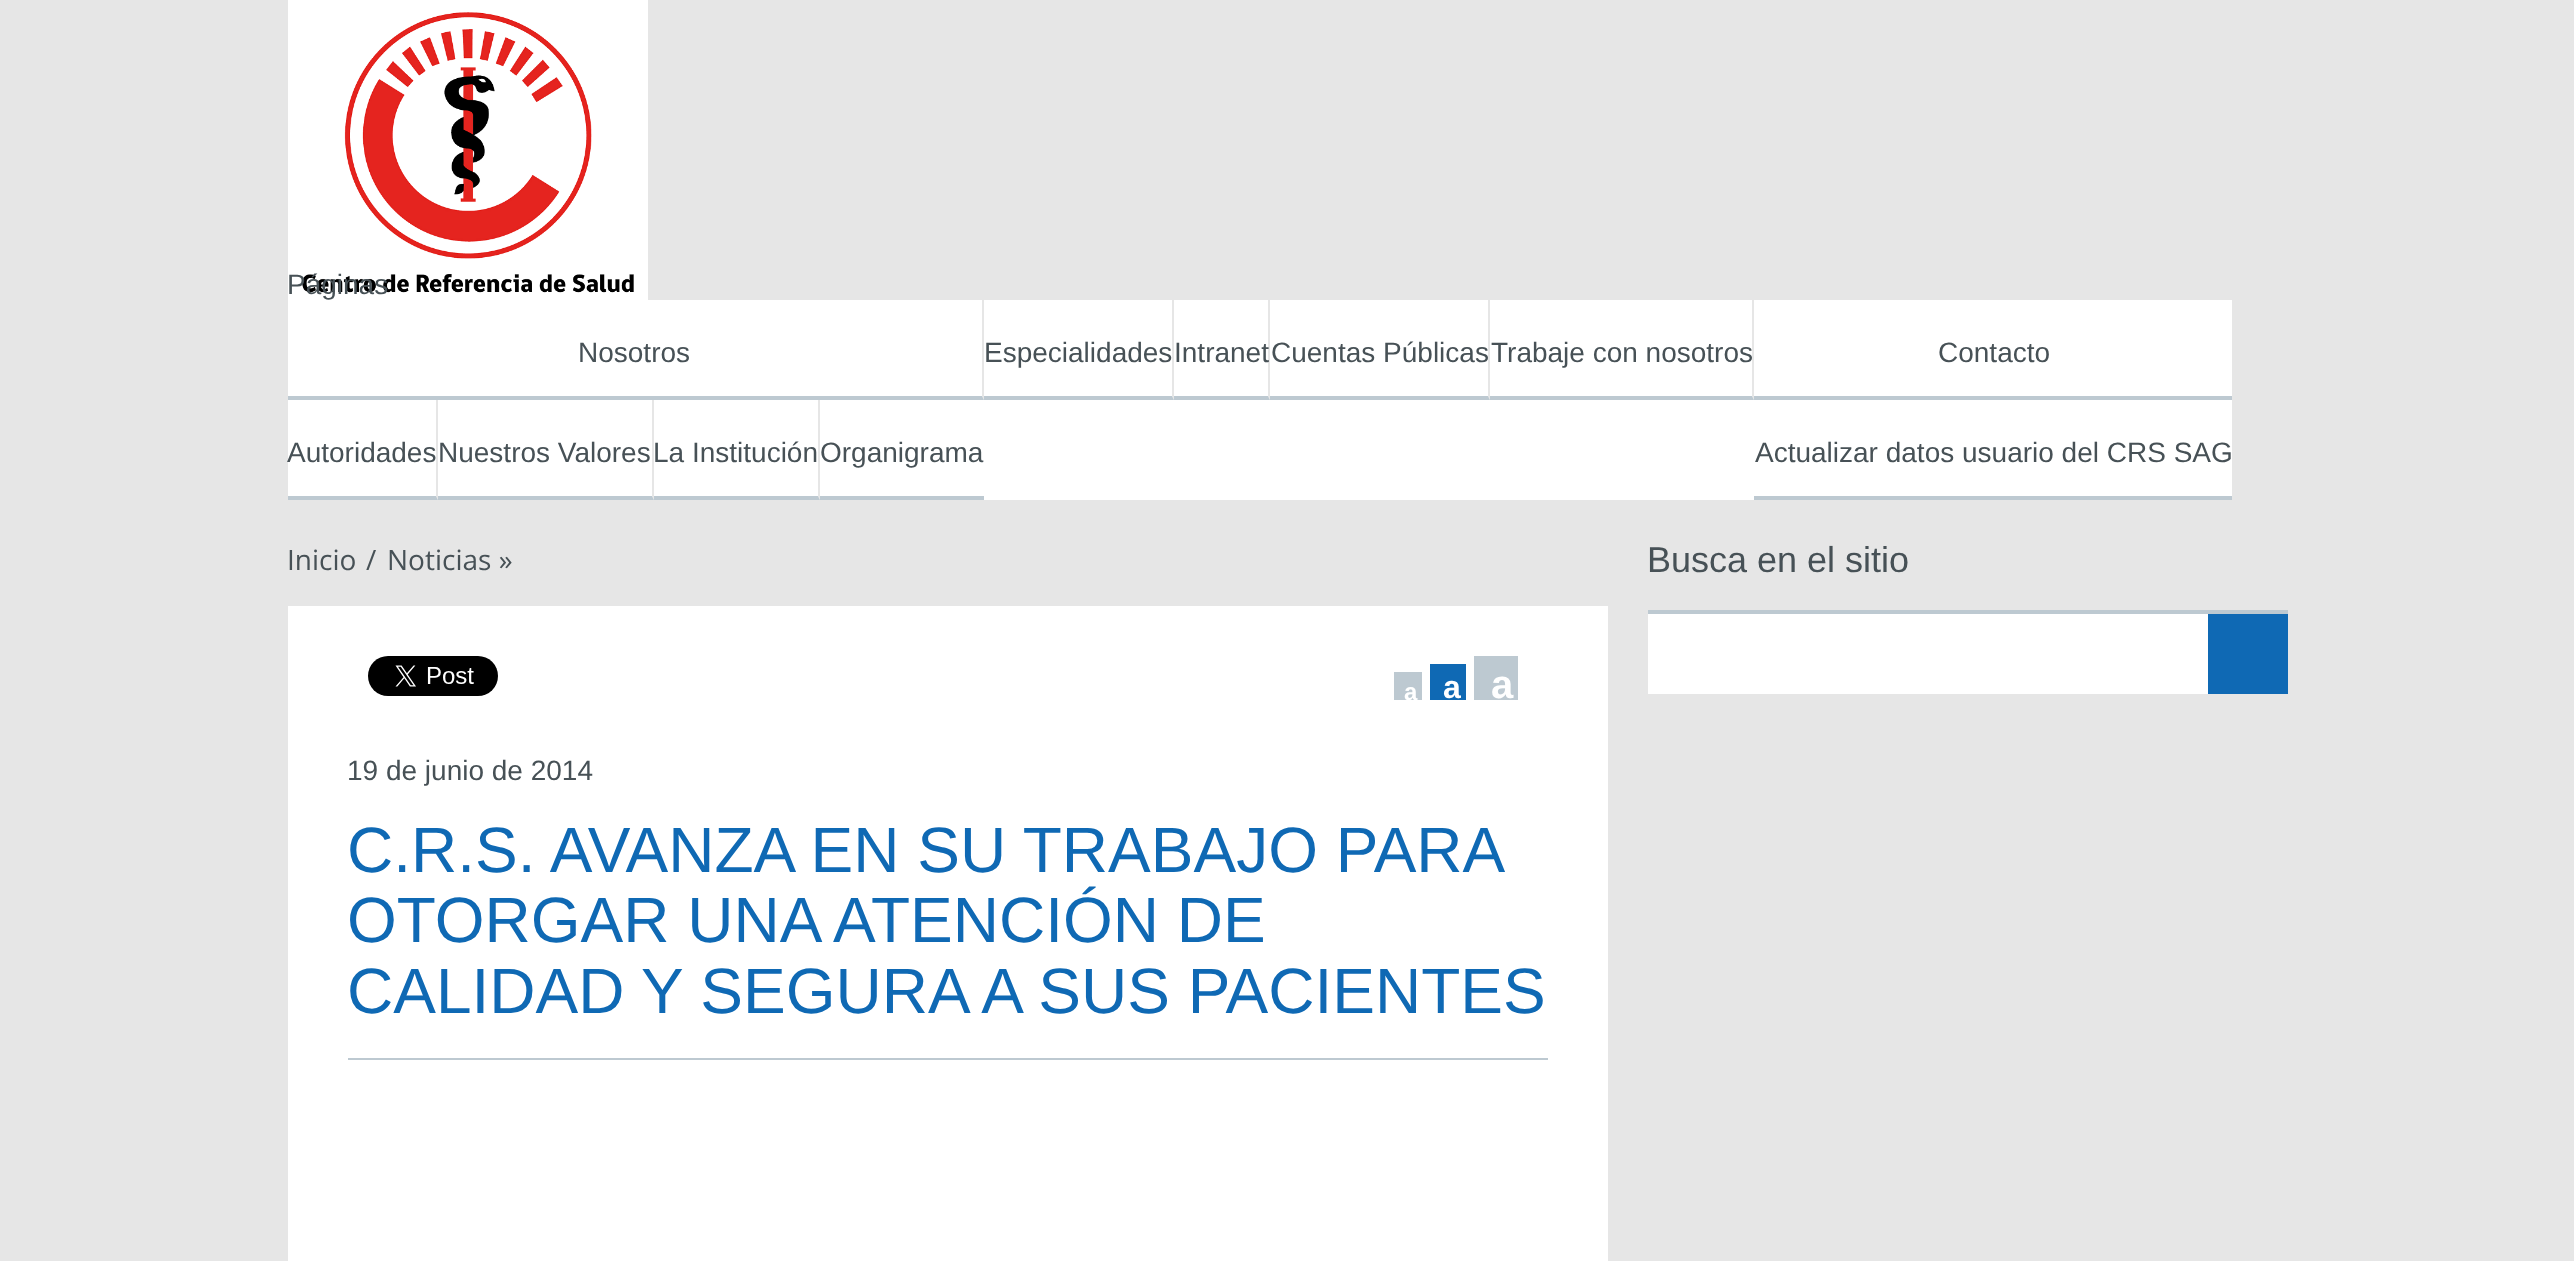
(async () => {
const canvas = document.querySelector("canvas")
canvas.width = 2574
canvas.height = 1261
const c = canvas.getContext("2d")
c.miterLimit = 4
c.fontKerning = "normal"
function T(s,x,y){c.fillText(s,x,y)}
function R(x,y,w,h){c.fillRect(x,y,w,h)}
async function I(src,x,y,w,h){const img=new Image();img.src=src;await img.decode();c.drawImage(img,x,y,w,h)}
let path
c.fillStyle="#e6e6e6"
R(0,0,2574,1261)
await I("1.png",288,0,360,300)
c.font="28px Liberation Sans"
c.fillStyle="#475156"
T("Páginas",287,294)
c.fillStyle="#fff"
R(288,300,1944,200)
c.fillStyle="#e6e6e6"
path = new Path2D("M984 300v100l-2-4v-96z")
c.fill(path)
c.fillStyle="#bdc9d1"
path = new Path2D("M984 400h-696v-4h694z")
c.fill(path)
c.fillStyle="#475156"
T("Nosotros",578,362)
c.fillStyle="#e6e6e6"
path = new Path2D("M438 400v100l-2-4v-96z")
c.fill(path)
c.fillStyle="#bdc9d1"
path = new Path2D("M438 500h-150v-4h148z")
c.fill(path)
c.fillStyle="#475156"
T("Autoridades",287,462)
c.fillStyle="#e6e6e6"
path = new Path2D("M654 400v100l-2-4v-96z")
c.fill(path)
c.fillStyle="#bdc9d1"
path = new Path2D("M654 500h-216v-4h214z")
c.fill(path)
c.fillStyle="#475156"
T("Nuestros Valores",438,462)
c.fillStyle="#e6e6e6"
path = new Path2D("M820 400v100l-2-4v-96z")
c.fill(path)
c.fillStyle="#bdc9d1"
path = new Path2D("M820 500h-166v-4h164z")
c.fill(path)
c.fillStyle="#475156"
T("La Institución",653,462)
c.fillStyle="#bdc9d1"
R(820,496,164,4)
c.fillStyle="#475156"
T("Organigrama",820,462)
c.fillStyle="#e6e6e6"
path = new Path2D("M1174 300v100l-2-4v-96z")
c.fill(path)
c.fillStyle="#bdc9d1"
path = new Path2D("M1174 400h-190v-4h188z")
c.fill(path)
c.fillStyle="#475156"
T("Especialidades",984,362)
c.fillStyle="#e6e6e6"
path = new Path2D("M1270 300v100l-2-4v-96z")
c.fill(path)
c.fillStyle="#bdc9d1"
path = new Path2D("M1270 400h-96v-4h94z")
c.fill(path)
c.fillStyle="#475156"
T("Intranet",1174,362)
c.fillStyle="#e6e6e6"
path = new Path2D("M1490 300v100l-2-4v-96z")
c.fill(path)
c.fillStyle="#bdc9d1"
path = new Path2D("M1490 400h-220v-4h218z")
c.fill(path)
c.fillStyle="#475156"
T("Cuentas Públicas",1271,362)
c.fillStyle="#e6e6e6"
path = new Path2D("M1754 300v100l-2-4v-96z")
c.fill(path)
c.fillStyle="#bdc9d1"
path = new Path2D("M1754 400h-264v-4h262z")
c.fill(path)
c.fillStyle="#475156"
T("Trabaje con nosotros",1491,362)
c.fillStyle="#bdc9d1"
R(1754,396,478,4)
c.fillStyle="#475156"
T("Contacto",1938,362)
c.fillStyle="#bdc9d1"
R(1754,496,478,4)
c.fillStyle="#475156"
T("Actualizar datos usuario del CRS SAG",1755,462)
c.font="28px Open Sans"
T("Inicio",287,570)
T("/",366,570)
T("Noticias »",387,570)
c.fillStyle="#fff"
R(288,606,1320,655)
await I("2.png",368,656,130,40)
c.fillStyle="#bdc9d1"
R(1394,672,28,28)
c.font="bold 24px Liberation Sans"
c.fillStyle="#fff"
T("a",1404,700)
c.fillStyle="#0f69b4"
R(1430,664,36,36)
c.font="bold 32px Liberation Sans"
c.fillStyle="#fff"
T("a",1443,698)
c.fillStyle="#bdc9d1"
R(1474,656,44,44)
c.font="bold 40px Liberation Sans"
c.fillStyle="#fff"
T("a",1491,698)
c.font="28px Liberation Sans"
c.fillStyle="#475156"
T("19 de junio de 2014",347,780)
c.fillStyle="#bdc9d1"
R(348,1058,1200,2)
c.font="64px Liberation Sans"
c.fillStyle="#0f69b4"
T("C.R.S. AVANZA EN SU TRABAJO PARA",347,872)
T("OTORGAR UNA ATENCIÓN DE",347,942)
T("CALIDAD Y SEGURA A SUS PACIENTES",347,1013)
c.font="36px Liberation Sans"
c.fillStyle="#475156"
T("Busca en el sitio",1647,572)
c.fillStyle="#fff"
R(1648,614,560,80)
c.fillStyle="#bdc9d1"
R(1648,610,640,4)
c.fillStyle="#0f69b4"
R(2208,614,80,80)
})()
